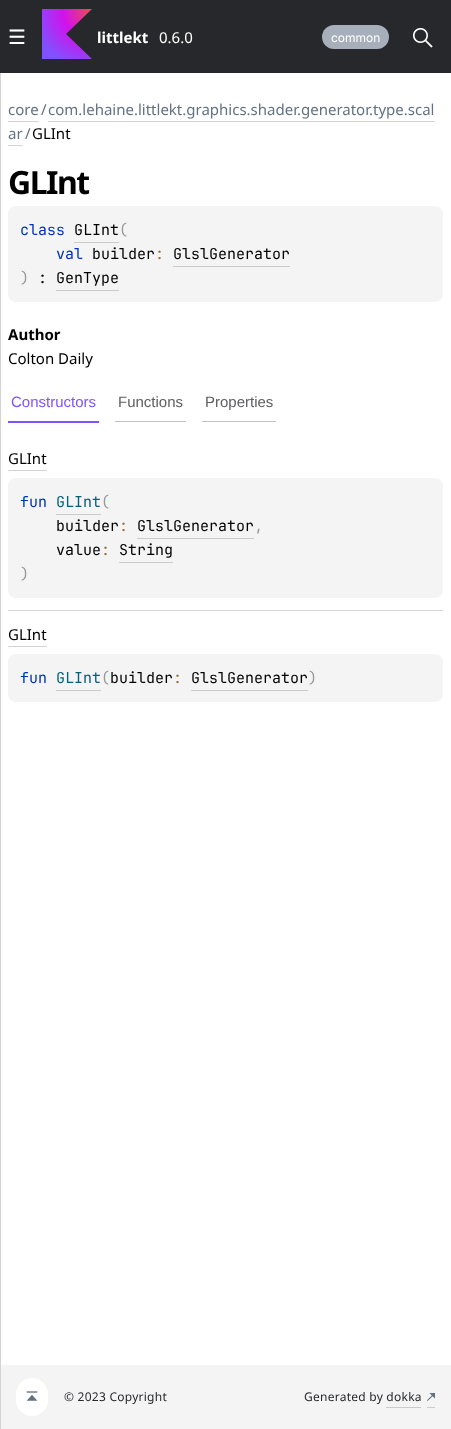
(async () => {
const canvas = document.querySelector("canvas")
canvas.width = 451
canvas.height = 1429
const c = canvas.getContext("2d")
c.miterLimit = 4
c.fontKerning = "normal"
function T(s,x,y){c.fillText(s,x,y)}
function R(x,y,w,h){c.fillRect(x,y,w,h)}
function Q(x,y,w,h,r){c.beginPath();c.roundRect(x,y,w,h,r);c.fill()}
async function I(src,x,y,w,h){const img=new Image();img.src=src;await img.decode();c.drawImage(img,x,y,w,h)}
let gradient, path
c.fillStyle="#fff"
R(0,0,451,1429)
c.fillStyle="#27282c"
R(0,0,451,73)
c.font="20px DejaVu Sans"
c.fillStyle="#fff"
T("☰",8,44)
gradient = c.createRadialGradient(90,11,0,90,11,57)
gradient.addColorStop(0,"#ef4857")
gradient.addColorStop(.47,"#d211ec")
gradient.addColorStop(1,"#7f52ff")
c.fillStyle = gradient
path = new Path2D("M92 59h-50v-50h50l-26 25z")
c.fill(path)
c.font="bold 15px Noto Sans"
c.fillStyle="#fff"
T("littlekt",97,43)
c.font="15px Noto Sans"
T("0.6.0",159,43)
c.fillStyle="#a6afba"
Q(322,25,67,24,12)
c.font="12px Inter"
c.fillStyle="#fff"
T("common",331,42)
await I("1.png",413,28,20,20)
c.fillStyle="#d4d4d5"
R(0,73,1,1356)
c.font="15px Noto Sans"
c.fillStyle="#637282"
T("core",8,115)
c.fillStyle="#d4d4d5"
R(8,121,31,1)
c.fillStyle="#637282"
T("/",41,115)
T("com.lehaine.littlekt.graphics.shader.generator.type.scal",48,115)
c.fillStyle="#d4d4d5"
R(48,121,387,1)
c.fillStyle="#637282"
T("ar",8,139)
c.fillStyle="#d4d4d5"
R(8,145,15,1)
c.fillStyle="#637282"
T("/",25,139)
c.fillStyle="#000"
T("GLInt",32,139)
c.letterSpacing="-1.5px"
c.font="bold 32px Noto Sans"
T("GLInt",8,194)
c.fillStyle="#f4f4f4"
Q(8,206,435,96,8)
c.letterSpacing="0px"
c.font="15px JetBrains Mono"
c.fillStyle="#0033b3"
T("class",20,235)
c.fillStyle="#000"
T("GLInt",74,235)
c.fillStyle="#cbcbcc"
R(74,242,45,1)
c.fillStyle="#999"
T("(",119,235)
c.fillStyle="#0033b3"
T("val",56,259)
c.fillStyle="#000"
T("builder",92,259)
c.fillStyle="#9a6e3a"
T(":",155,259)
c.fillStyle="#000"
T("GlslGenerator",173,259)
c.fillStyle="#cbcbcc"
R(173,266,117,1)
c.fillStyle="#999"
T(")",20,283)
c.fillStyle="#000"
T(": GenType",38,283)
c.fillStyle="#cbcbcc"
R(56,290,63,1)
c.font="bold 15px Noto Sans"
c.fillStyle="#000"
T("Author",8,340)
c.font="15px Noto Sans"
T("Colton Daily",8,364)
c.fillStyle="#7f52ff"
R(8,421,91,2)
c.font="15px Liberation Sans"
T("Constructors",11,407)
c.fillStyle="#bfbfc4"
R(115,421,71,1)
c.fillStyle="#5e5e60"
T("Functions",118,407)
c.fillStyle="#bfbfc4"
R(202,421,74,1)
c.fillStyle="#5e5e60"
T("Properties",205,407)
c.fillStyle="#d4d4d5"
R(8,610,435,1)
c.font="15px Noto Sans"
c.fillStyle="#000"
T("GLInt",8,464)
c.fillStyle="#d4d4d5"
R(8,470,39,1)
c.fillStyle="#f4f4f4"
Q(8,478,435,120,8)
c.font="15px JetBrains Mono"
c.fillStyle="#0033b3"
T("fun",20,507)
c.fillStyle="#00627a"
T("GLInt",56,507)
c.fillStyle="#cbcbcc"
R(56,514,45,1)
c.fillStyle="#999"
T("(",101,507)
c.fillStyle="#000"
T("builder",56,531)
c.fillStyle="#9a6e3a"
T(":",119,531)
c.fillStyle="#000"
T("GlslGenerator",137,531)
c.fillStyle="#cbcbcc"
R(137,538,117,1)
c.fillStyle="#999"
T(",",254,531)
c.fillStyle="#000"
T("value",56,555)
c.fillStyle="#9a6e3a"
T(":",101,555)
c.fillStyle="#000"
T("String",119,555)
c.fillStyle="#cbcbcc"
R(119,562,54,1)
c.fillStyle="#999"
T(")",20,579)
c.font="15px Noto Sans"
c.fillStyle="#000"
T("GLInt",8,640)
c.fillStyle="#d4d4d5"
R(8,646,39,1)
c.fillStyle="#f4f4f4"
Q(8,654,435,48,8)
c.font="15px JetBrains Mono"
c.fillStyle="#0033b3"
T("fun",20,683)
c.fillStyle="#00627a"
T("GLInt",56,683)
c.fillStyle="#cbcbcc"
R(56,690,45,1)
c.fillStyle="#999"
T("(",101,683)
c.fillStyle="#000"
T("builder",110,683)
c.fillStyle="#9a6e3a"
T(":",173,683)
c.fillStyle="#000"
T("GlslGenerator",191,683)
c.fillStyle="#cbcbcc"
R(191,690,117,1)
c.fillStyle="#999"
T(")",308,683)
c.fillStyle="#f4f4f4"
R(1,1365,450,64)
c.fillStyle="#fff"
Q(16,1378,32,38,16)
await I("2.png",26,1391,12,10)
c.letterSpacing="0.25px"
c.font="12px Noto Sans"
c.fillStyle="#27282c"
T("© 2023 Copyright",64,1401)
T("Generated by dokka",304,1401)
await I("3.png",427,1393,8,8)
c.fillStyle="#cbcbcc"
R(386,1407,35,1)
R(427,1407,8,1)
})()
